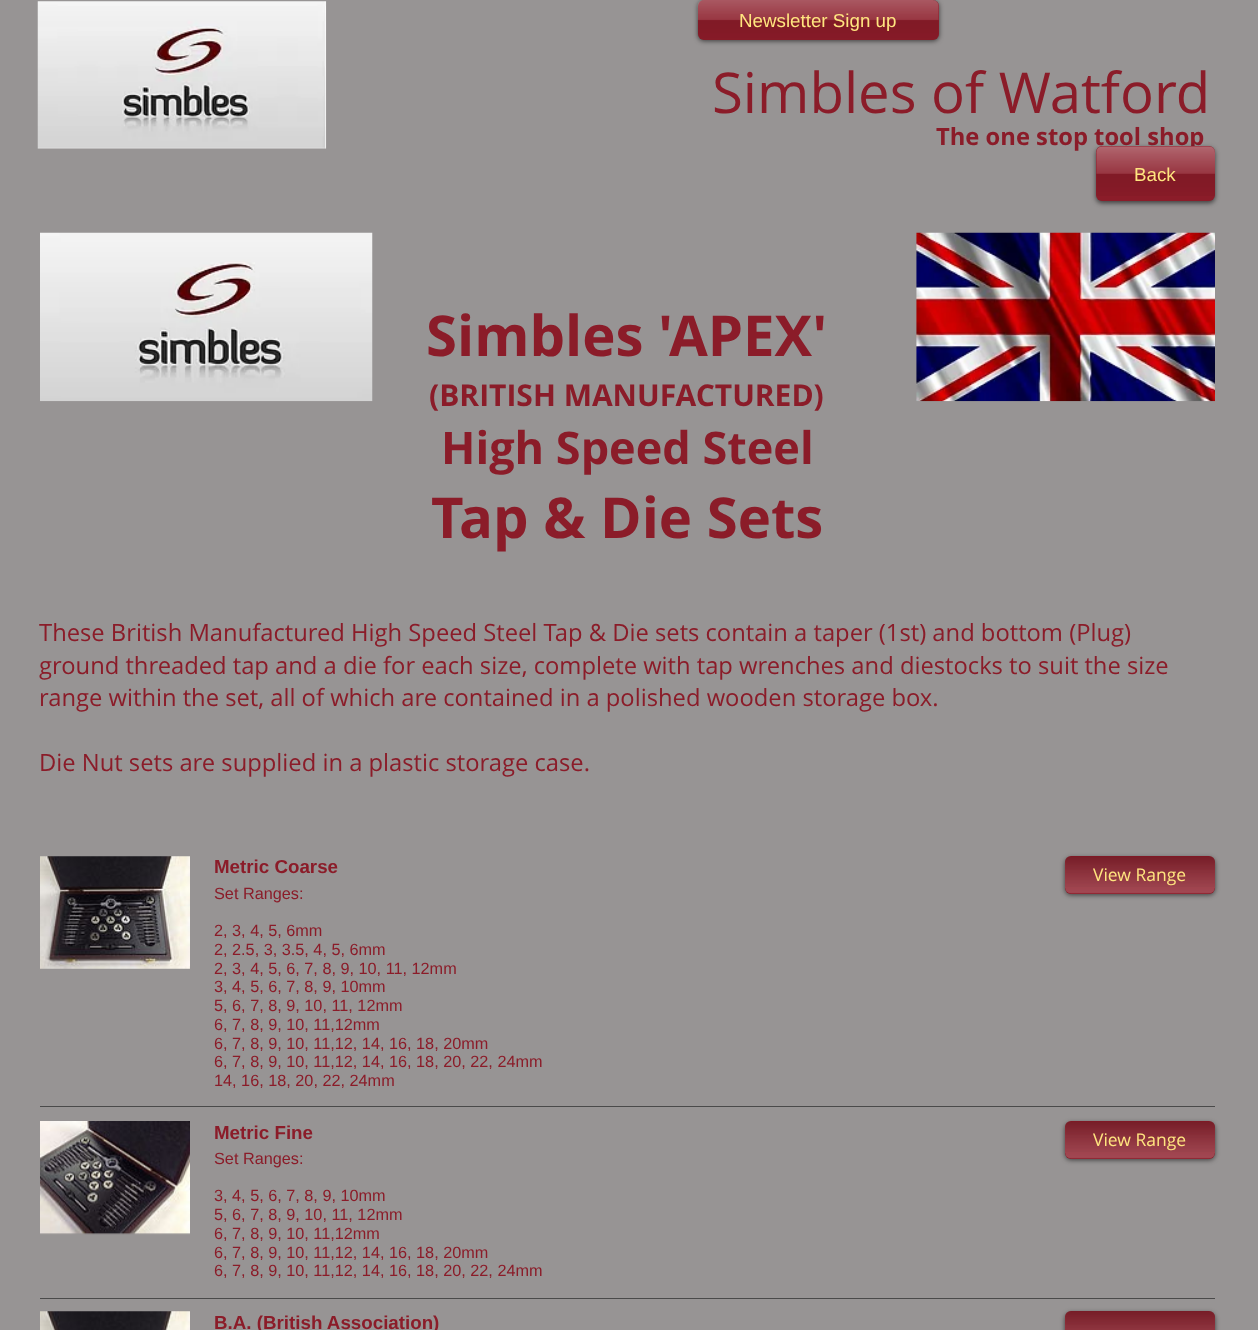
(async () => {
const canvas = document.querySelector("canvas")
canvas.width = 1258
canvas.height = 1330
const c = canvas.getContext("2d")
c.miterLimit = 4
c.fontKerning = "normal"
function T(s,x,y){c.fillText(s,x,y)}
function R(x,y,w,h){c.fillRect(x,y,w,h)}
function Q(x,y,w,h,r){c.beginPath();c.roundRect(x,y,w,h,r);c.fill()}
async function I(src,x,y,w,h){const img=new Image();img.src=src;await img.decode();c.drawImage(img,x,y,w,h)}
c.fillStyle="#979494"
R(0,0,1258,1330)
await I("1.png",37,1,290,148)
c.fillStyle="#00000099"
c.filter="blur(2.5px)"
c.beginPath()
c.roundRect(698,1,241,40,6)
c.fill()
c.filter="none"
c.fillStyle="#8b1c29"
Q(698,0,241,40,6)
await I("2.png",697,0,242,40)
c.font="18.75px Liberation Sans"
c.fillStyle="#ffe57f"
T("Newsletter Sign up",739,27)
c.font="56.25px Open Sans"
c.fillStyle="#8b1c29"
T("Simbles of Watford",712,113)
c.font="bold 23.75px Open Sans"
T("The one stop tool shop",936,145)
c.fillStyle="#00000099"
c.filter="blur(2.5px)"
c.beginPath()
c.roundRect(1096,148,119,55,6)
c.fill()
c.filter="none"
c.fillStyle="#8b1c29"
Q(1096,146,119,55,6)
await I("3.png",1096,146,119,50)
c.font="18.75px Liberation Sans"
c.fillStyle="#ffe57f"
T("Back",1134,181)
await I("4.png",40,232,333,170)
c.font="bold 56.25px Open Sans"
c.fillStyle="#8b1c29"
T("Simbles 'APEX'",426,356)
c.font="bold 30px Open Sans"
T("(BRITISH MANUFACTURED)",429,406)
c.font="bold 45px Open Sans"
T("High Speed Steel",441,464)
c.font="bold 56.25px Open Sans"
T("Tap & Die Sets",431,538)
await I("5.png",916,232,299,170)
c.font="23.75px Open Sans"
T("These British Manufactured High Speed Steel Tap & Die sets contain a taper (1st) and bottom (Plug)",39,641)
T("ground threaded tap and a die for each size, complete with tap wrenches and diestocks to suit the size",39,674)
T("range within the set, all of which are contained in a polished wooden storage box.",39,706)
T("Die Nut sets are supplied in a plastic storage case.",39,771)
await I("6.png",40,856,150,113)
c.font="bold 18.75px Liberation Sans"
T("Metric Coarse",214,873)
c.font="16.25px Liberation Sans"
T("Set Ranges:",214,899)
T("2, 3, 4, 5, 6mm",214,936)
T("2, 2.5, 3, 3.5, 4, 5, 6mm",214,955)
T("2, 3, 4, 5, 6, 7, 8, 9, 10, 11, 12mm",214,974)
T("3, 4, 5, 6, 7, 8, 9, 10mm",214,992)
T("5, 6, 7, 8, 9, 10, 11, 12mm",214,1011)
T("6, 7, 8, 9, 10, 11,12mm",214,1030)
T("6, 7, 8, 9, 10, 11,12, 14, 16, 18, 20mm",214,1049)
T("6, 7, 8, 9, 10, 11,12, 14, 16, 18, 20, 22, 24mm",214,1067)
T("14, 16, 18, 20, 22, 24mm",214,1086)
c.fillStyle="#00000099"
c.filter="blur(2.5px)"
c.beginPath()
c.roundRect(1065,858,150,37,6)
c.fill()
c.filter="none"
c.fillStyle="#8b1c29"
Q(1065,856,150,38,6)
await I("7.png",1065,856,150,31)
await I("8.png",1065,857,150,37)
c.font="17.5px Open Sans"
c.fillStyle="#ffe57f"
T("View Range",1093,881)
c.fillStyle="#4a4a4a"
R(40,1106,1175,1)
await I("9.png",40,1121,150,114)
c.font="bold 18.75px Liberation Sans"
c.fillStyle="#8b1c29"
T("Metric Fine",214,1139)
c.font="16.25px Liberation Sans"
T("Set Ranges:",214,1164)
T("3, 4, 5, 6, 7, 8, 9, 10mm",214,1201)
T("5, 6, 7, 8, 9, 10, 11, 12mm",214,1220)
T("6, 7, 8, 9, 10, 11,12mm",214,1239)
T("6, 7, 8, 9, 10, 11,12, 14, 16, 18, 20mm",214,1258)
T("6, 7, 8, 9, 10, 11,12, 14, 16, 18, 20, 22, 24mm",214,1276)
c.fillStyle="#00000099"
c.filter="blur(2.5px)"
c.beginPath()
c.roundRect(1065,1123,150,37,6)
c.fill()
c.filter="none"
c.fillStyle="#8b1c29"
Q(1065,1121,150,38,6)
await I("7.png",1065,1121,150,31)
await I("8.png",1065,1122,150,37)
c.font="17.5px Open Sans"
c.fillStyle="#ffe57f"
T("View Range",1093,1146)
c.fillStyle="#4a4a4a"
R(40,1298,1175,1)
await I("10.png",40,1311,150,19)
c.font="bold 18.75px Liberation Sans"
c.fillStyle="#8b1c29"
T("B.A. (British Association)",214,1329)
c.fillStyle="#00000099"
c.filter="blur(2.5px)"
c.beginPath()
c.roundRect(1065,1313,150,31,6)
c.fill()
c.filter="none"
c.fillStyle="#8b1c29"
Q(1065,1311,150,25,6)
await I("11.png",1065,1311,150,19)
await I("12.png",1065,1311,150,19)
})()
